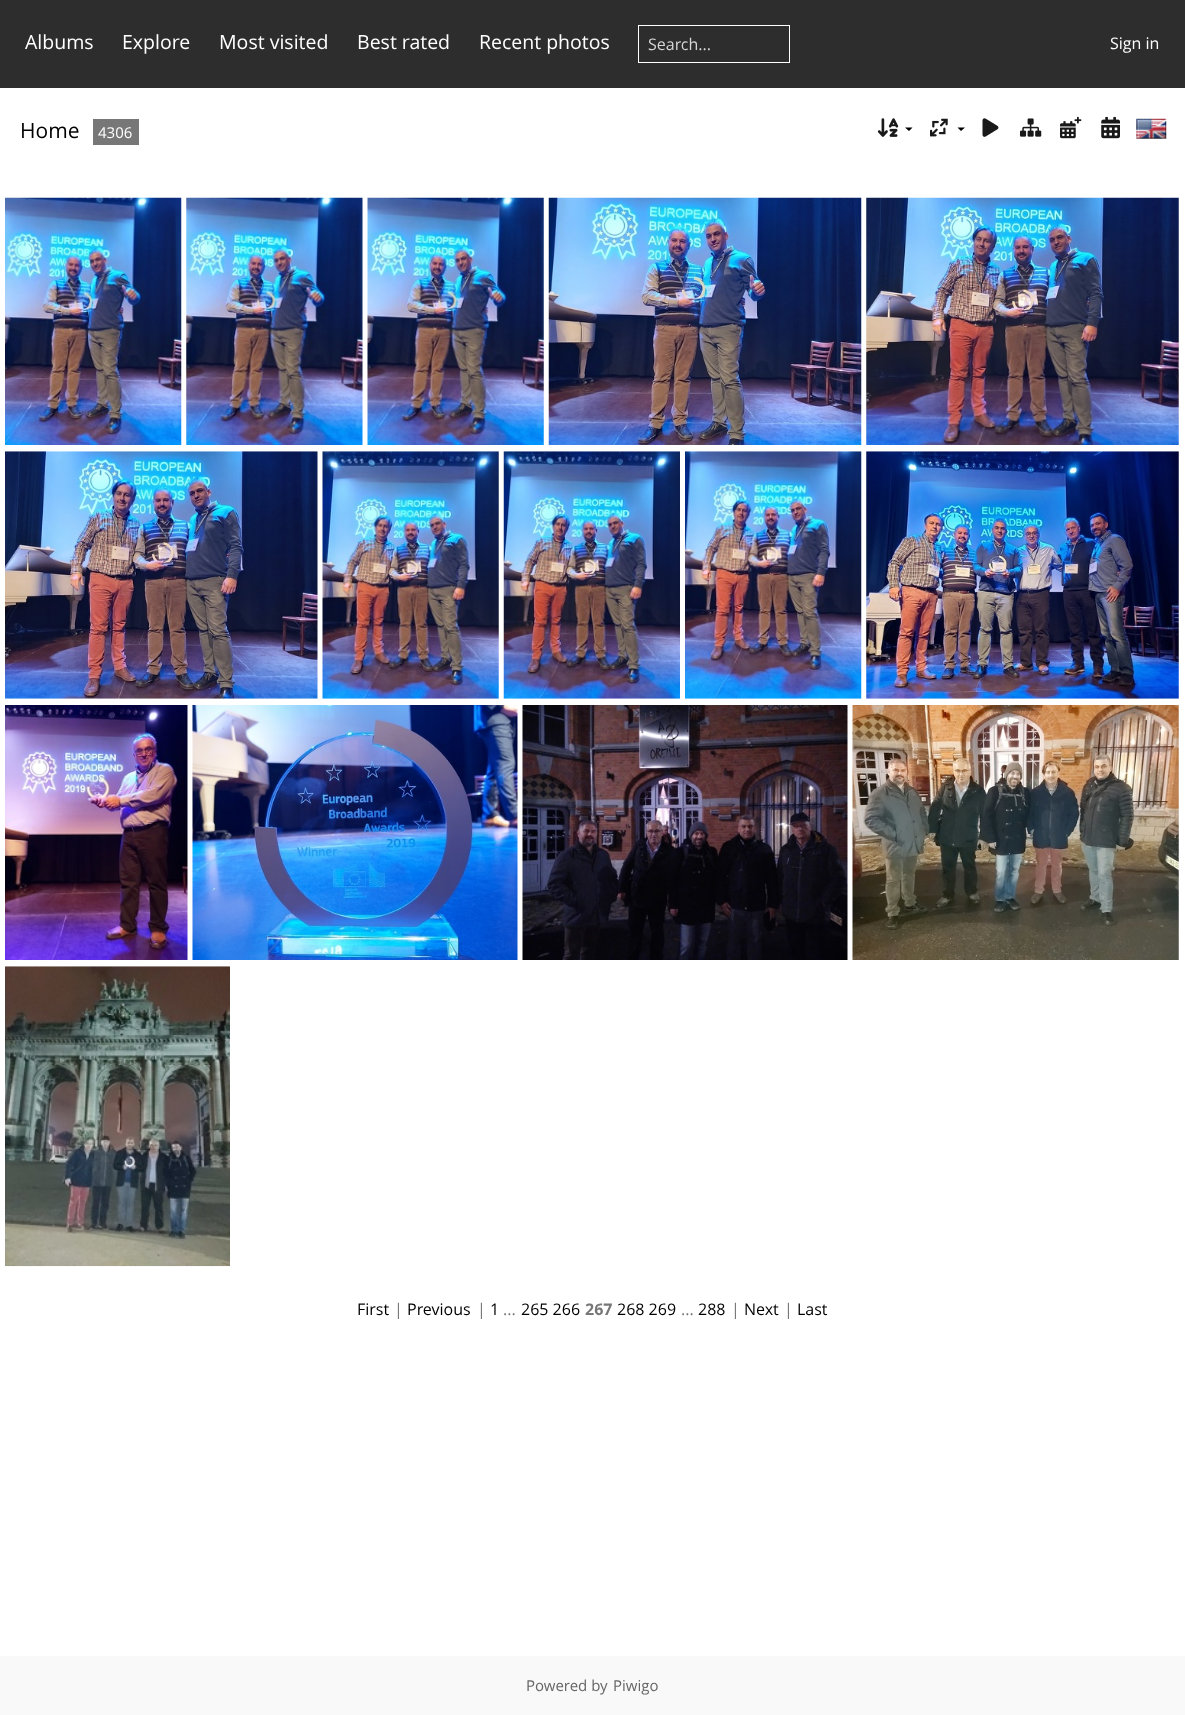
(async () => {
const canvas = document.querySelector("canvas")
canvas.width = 1185
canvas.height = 1715
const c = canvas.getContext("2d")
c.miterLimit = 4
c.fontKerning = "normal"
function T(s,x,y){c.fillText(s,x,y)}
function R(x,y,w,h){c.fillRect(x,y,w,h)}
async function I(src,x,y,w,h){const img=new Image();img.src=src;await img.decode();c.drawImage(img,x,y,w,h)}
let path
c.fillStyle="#fff"
R(0,0,1185,1715)
c.fillStyle="#2d2d2d"
R(0,0,1185,88)
c.font="19.5px Open Sans"
c.fillStyle="#fff"
T("Albums",25,49)
T("Explore",122,49)
T("Most visited",219,49)
T("Best rated",357,49)
T("Recent photos",479,49)
c.strokeStyle="#fff"
c.strokeRect(638.5,25.5,151,37)
c.font="16px Open Sans"
c.fillStyle="#d6d6d6"
T("Search...",648,50)
c.fillStyle="#fff"
T("Sign in",1110,49)
c.font="21px Open Sans"
c.fillStyle="#000"
T("Home",20,138)
c.fillStyle="#777"
R(93,119,46,26)
c.font="15px Open Sans"
c.fillStyle="#fff"
T("4306",98,138)
await I("1.png",877,118,22,19)
c.fillStyle="#000"
path = new Path2D("M905 127.5h7.5l-3.5 3.5zm52.5 0h7.5l-4 3.5z")
c.fill(path)
await I("2.png",1060,116,22,23)
await I("3.png",1101,116,19,23)
await I("4.png",930,118,18,19)
await I("5.png",982,118,17,19)
await I("6.png",1020,118,22,19)
await I("7.png",1136,118,31,21)
await I("8.png",5,197,177,248)
await I("9.png",186,197,177,248)
await I("10.png",367,197,177,248)
await I("11.png",548,197,314,248)
await I("12.png",866,197,313,248)
await I("13.png",5,451,313,248)
await I("14.png",322,451,177,248)
await I("15.png",503,451,177,248)
await I("16.png",685,451,177,248)
await I("17.png",866,451,313,248)
await I("18.png",5,705,183,255)
await I("19.png",192,705,326,255)
await I("20.png",522,705,326,255)
await I("21.png",852,705,327,255)
await I("22.png",5,966,225,301)
c.font="16px Open Sans"
T("First",357,1315)
c.fillStyle="#777"
T("|",394,1315)
c.fillStyle="#000"
T("Previous",407,1315)
c.fillStyle="#777"
T("|",477,1315)
c.fillStyle="#000"
T("1",490,1315)
c.fillStyle="#777"
T("...",503,1315)
c.fillStyle="#000"
T("265 266",521,1315)
c.font="bold 16px Open Sans"
c.fillStyle="#777"
T("267",585,1315)
c.font="16px Open Sans"
c.fillStyle="#000"
T("268 269",617,1315)
c.fillStyle="#777"
T("...",681,1315)
c.fillStyle="#000"
T("288",698,1315)
c.fillStyle="#777"
T("|",731,1315)
c.fillStyle="#000"
T("Next",744,1315)
c.fillStyle="#777"
T("|",784,1315)
c.fillStyle="#000"
T("Last",797,1315)
c.fillStyle="#f9f9f9"
R(0,1656,1185,59)
c.font="15px Open Sans"
c.fillStyle="#666"
T("Powered by",526,1691)
T("Piwigo",613,1691)
})()
